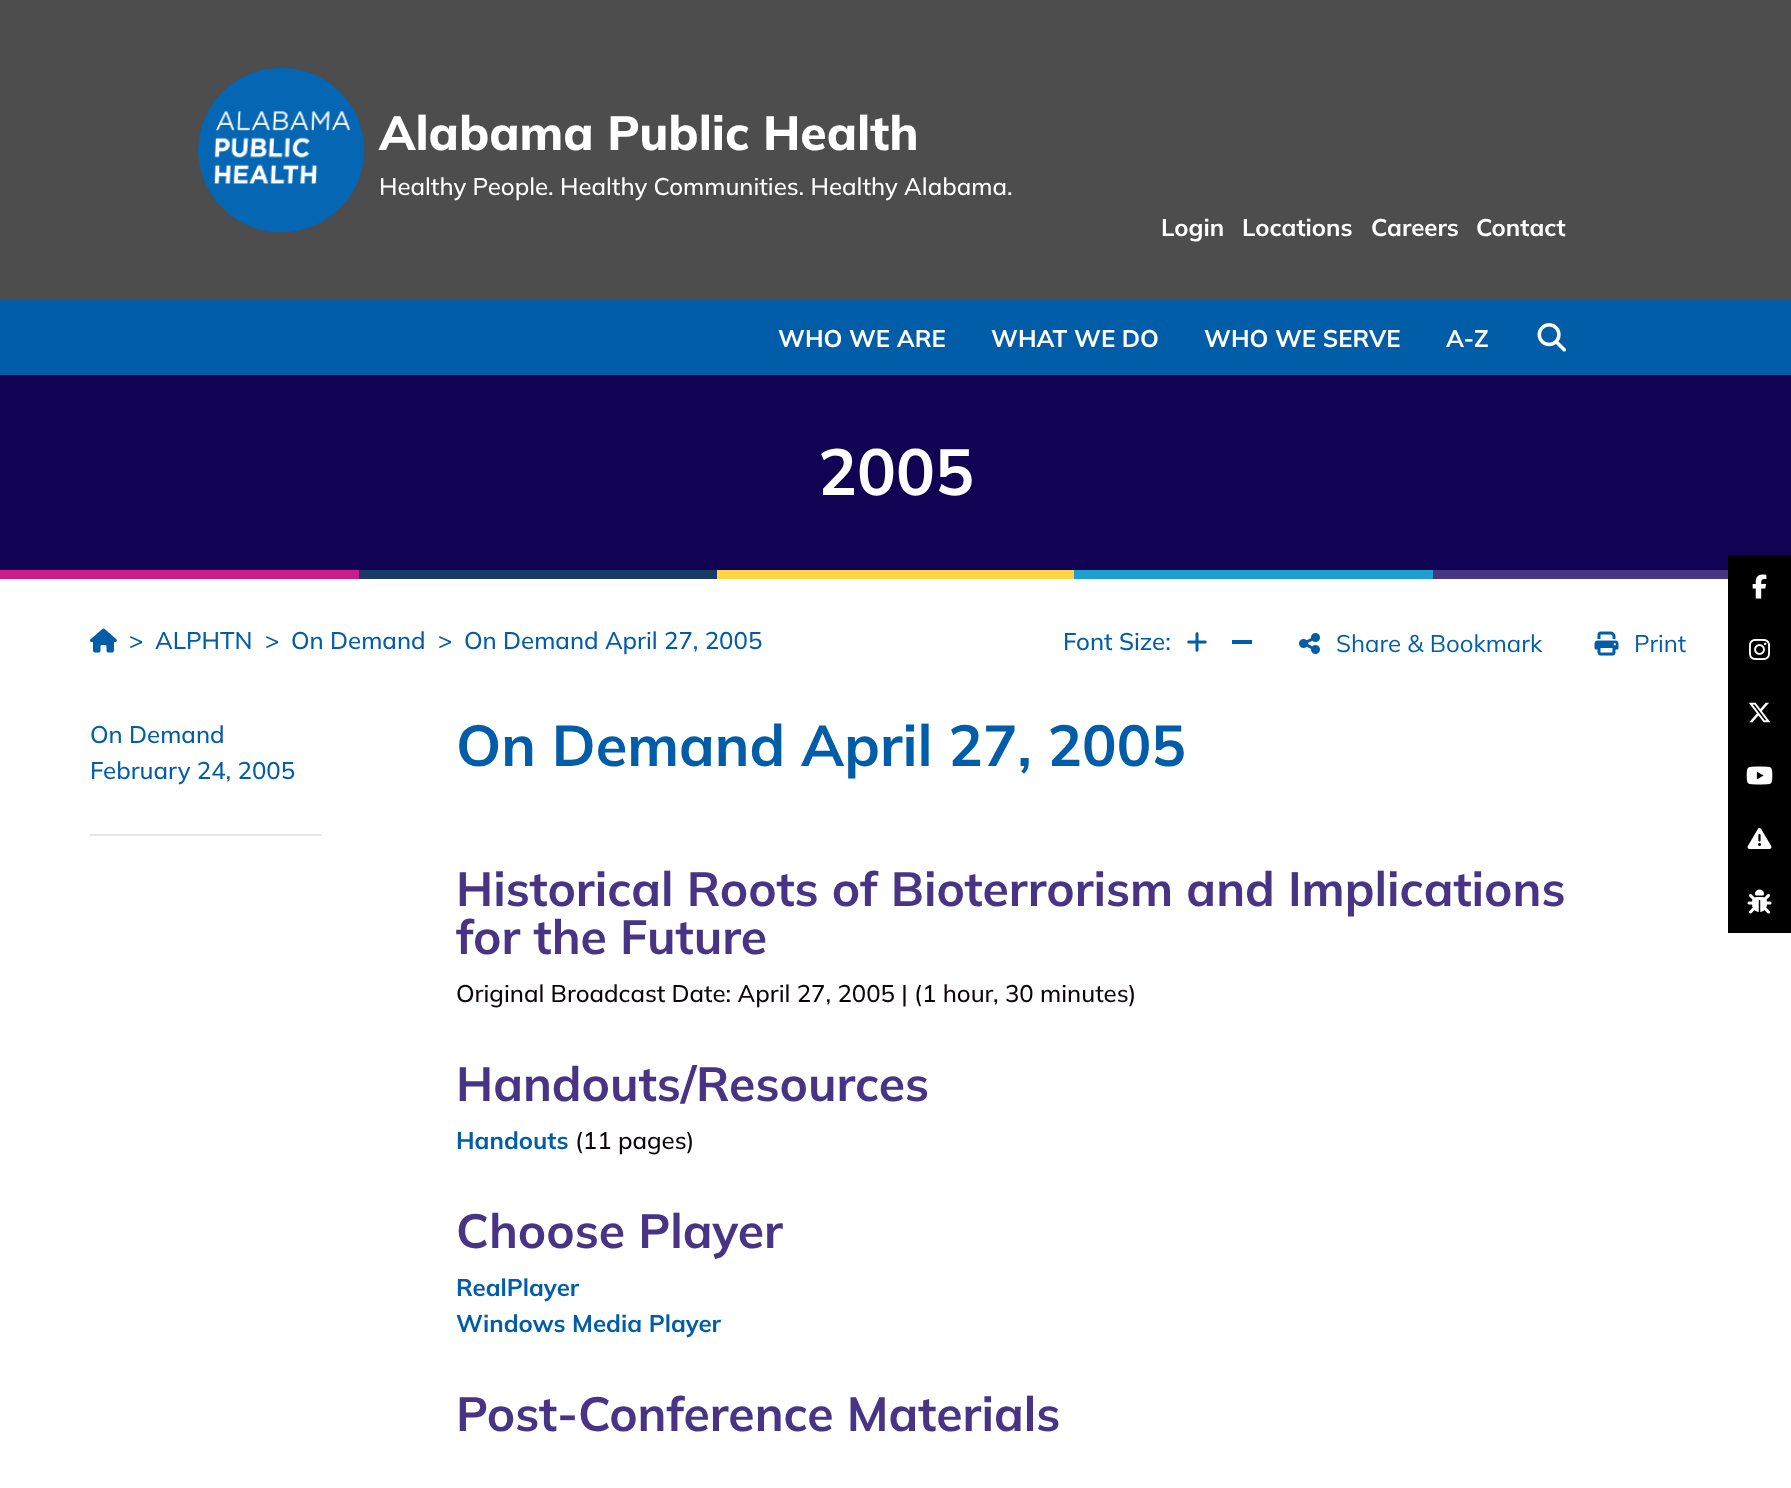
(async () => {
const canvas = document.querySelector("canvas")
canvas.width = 1791
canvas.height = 1488
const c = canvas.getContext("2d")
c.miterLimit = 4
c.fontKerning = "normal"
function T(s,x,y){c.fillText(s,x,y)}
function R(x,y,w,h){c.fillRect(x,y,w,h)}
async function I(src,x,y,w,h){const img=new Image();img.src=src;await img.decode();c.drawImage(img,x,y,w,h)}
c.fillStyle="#fff"
R(0,0,1791,1488)
c.fillStyle="#4d4d4d"
R(0,0,1791,300)
await I("1.png",198,67,167,166)
c.font="800 48px Mulish"
c.fillStyle="#fff"
T("Alabama Public Health",379,150)
c.font="500 24px Mulish"
T("Healthy People. Healthy Communities. Healthy Alabama.",379,195)
c.font="bold 24px Mulish"
T("Login",1161,236)
T("Locations",1242,236)
T("Careers",1371,236)
T("Contact",1476,236)
c.fillStyle="#025da9"
R(0,300,1791,75)
c.fillStyle="#fff"
T("WHO WE ARE",778,347)
T("WHAT WE DO",991,347)
T("WHO WE SERVE",1204,347)
T("A-Z",1446,347)
await I("2.png",1537,323,29,29)
c.fillStyle="#120253"
R(0,375,1791,195)
c.font="bold 65px Mulish"
c.fillStyle="#fff"
T("2005",818,495)
c.fillStyle="#cb1c89"
R(0,570,359,9)
c.fillStyle="#193b66"
R(359,570,358,9)
c.fillStyle="#fed643"
R(717,570,357,9)
c.fillStyle="#1e9dd0"
R(1074,570,359,9)
c.fillStyle="#473484"
R(1433,570,295,9)
await I("3.png",90,628,27,25)
c.font="500 24px Mulish"
c.fillStyle="#025da9"
T(">",129,649)
T("ALPHTN",155,649)
T(">",265,649)
T("On Demand",291,649)
T(">",438,649)
T("On Demand April 27, 2005",464,649)
T("Font Size:",1063,650)
await I("4.png",1187,632,20,20)
R(1232,640,20,4)
await I("5.png",1299,633,21,21)
c.font="24px Mulish"
T("Share & Bookmark",1336,652)
await I("6.png",1594,631,25,25)
T("Print",1634,652)
c.font="500 24px Mulish"
T("On Demand",90,743)
T("February 24, 2005",90,779)
c.fillStyle="#e6e6e6"
R(90,834,231,2)
c.font="bold 57.6px Mulish"
c.fillStyle="#025da9"
T("On Demand April 27, 2005",456,766)
c.font="bold 48px Mulish"
c.fillStyle="#473484"
T("Historical Roots of Bioterrorism and Implications",456,906)
T("for the Future",456,954)
c.font="500 24px Mulish"
c.fillStyle="#0c040b"
T("Original Broadcast Date: April 27, 2005 | (1 hour, 30 minutes)",456,1002)
c.font="bold 48px Mulish"
c.fillStyle="#473484"
T("Handouts/Resources",456,1101)
c.font="bold 24px Mulish"
c.fillStyle="#025da9"
T("Handouts",456,1149)
c.font="500 24px Mulish"
c.fillStyle="#0c040b"
T("(11 pages)",575,1149)
c.font="bold 48px Mulish"
c.fillStyle="#473484"
T("Choose Player",456,1248)
c.font="bold 24px Mulish"
c.fillStyle="#025da9"
T("RealPlayer",456,1296)
T("Windows Media Player",456,1332)
c.font="bold 48px Mulish"
c.fillStyle="#473484"
T("Post-Conference Materials",456,1431)
c.fillStyle="#000"
R(1728,555,63,378)
await I("7.png",1752,574,15,25)
await I("8.png",1749,639,21,21)
await I("9.png",1748,702,23,21)
await I("10.png",1746,766,27,19)
await I("11.png",1747,828,25,21)
await I("12.png",1747,889,25,25)
})()
